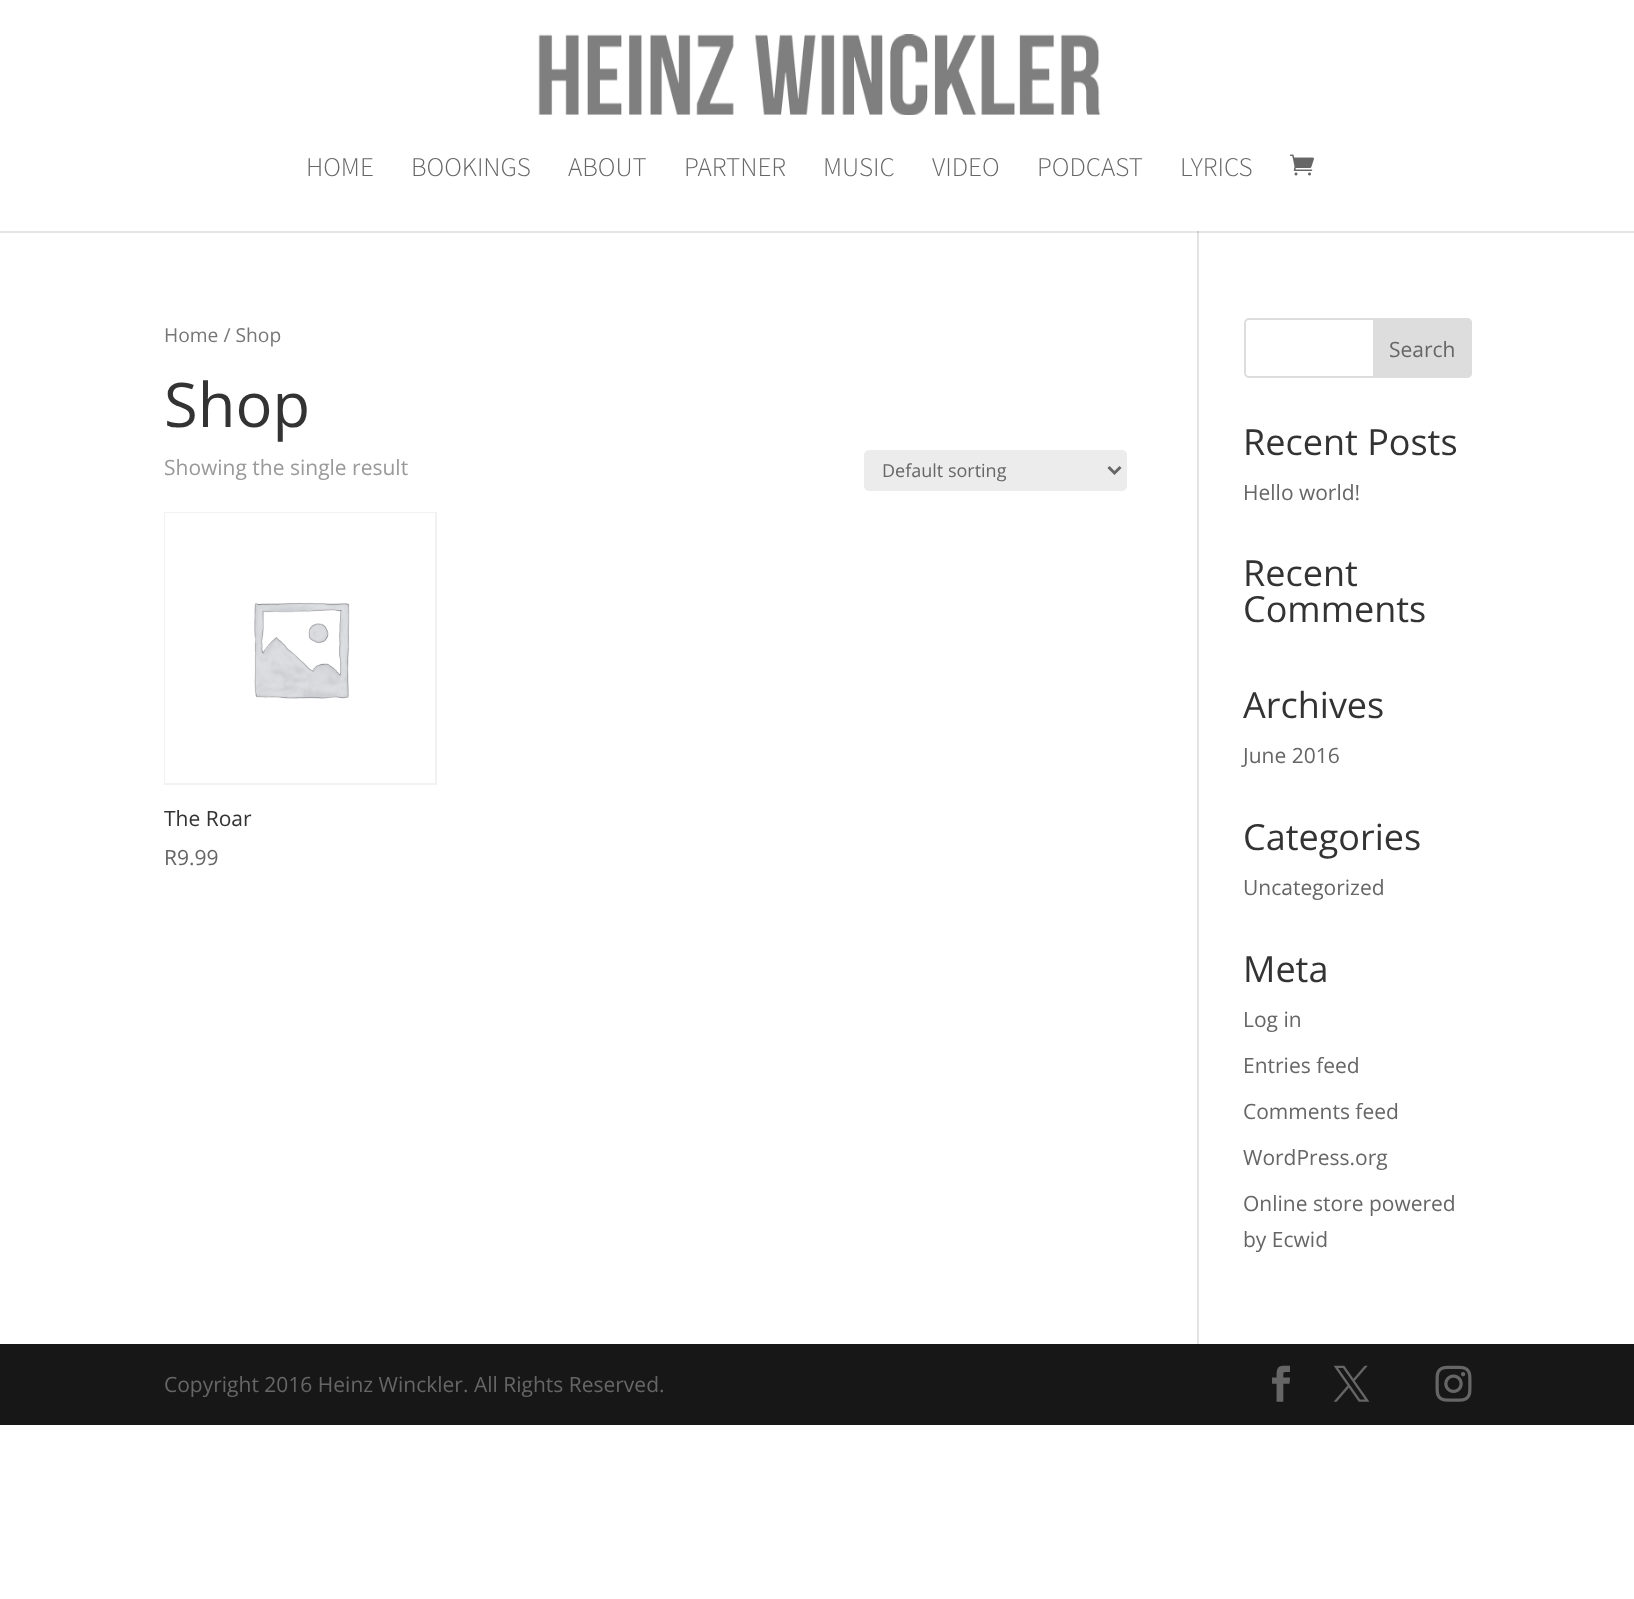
(async () => {
const canvas = document.querySelector("canvas")
canvas.width = 1634
canvas.height = 1599
const c = canvas.getContext("2d")
c.miterLimit = 4
c.fontKerning = "normal"
function T(s,x,y){c.fillText(s,x,y)}
function R(x,y,w,h){c.fillRect(x,y,w,h)}
function Q(x,y,w,h,r){c.beginPath();c.roundRect(x,y,w,h,r);c.fill()}
async function I(src,x,y,w,h){const img=new Image();img.src=src;await img.decode();c.drawImage(img,x,y,w,h)}
let path
c.fillStyle="#fff"
R(0,0,1634,1599)
c.fillStyle="#e6e6e6"
R(0,231,1634,2)
await I("1.png",538,34,563,81)
c.font="300 27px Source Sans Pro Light"
c.fillStyle="#666"
T("HOME",306,176)
T("BOOKINGS",411,176)
T("ABOUT",568,176)
T("PARTNER",684,176)
T("MUSIC",823,176)
T("VIDEO",932,176)
T("PODCAST",1037,176)
T("LYRICS",1180,176)
await I("2.png",1290,154,24,22)
c.fillStyle="#e2e2e2"
R(1197,231,2,1113)
c.fillStyle="#cbcbcb"
R(1197,231,2,2)
c.font="19.25px Open Sans"
c.fillStyle="#767676"
T("Home / Shop",164,342)
c.font="61.5px Open Sans"
c.fillStyle="#333"
T("Shop",164,427)
c.font="21px Open Sans"
c.fillStyle="#999"
T("Showing the single result",164,475)
c.fillStyle="#ececec"
Q(864,450,263,41,5)
path = new Path2D("M1108.5 467l6 6l6-6")
c.strokeStyle="#666"
c.lineWidth=3
c.stroke(path)
c.font="18px Open Sans"
c.fillStyle="#666"
T("Default sorting",882,477)
c.strokeStyle="#f2f2f2"
c.lineWidth=2
c.strokeRect(165,513,271,271)
await I("3.png",165,513,270,270)
c.font="21px Open Sans"
c.fillStyle="#333"
T("The Roar",164,826)
c.fillStyle="#666"
T("R9.99",164,865)
c.beginPath()
c.roundRect(1245,319,226,58,4)
c.strokeStyle="#ddd"
c.stroke()
c.fillStyle="#ddd"
c.beginPath()
c.roundRect(1374,319,97,58,[0,4,4,0])
c.fill()
c.stroke()
c.fillStyle="#666"
T("Search",1389,357)
c.font="36px Open Sans"
c.fillStyle="#333"
T("Recent Posts",1243,455)
c.font="21px Open Sans"
c.fillStyle="#666"
T("Hello world!",1243,500)
c.font="36px Open Sans"
c.fillStyle="#333"
T("Recent",1243,586)
T("Comments",1243,622)
T("Archives",1243,718)
c.font="21px Open Sans"
c.fillStyle="#666"
T("June 2016",1243,763)
c.font="36px Open Sans"
c.fillStyle="#333"
T("Categories",1243,850)
c.font="21px Open Sans"
c.fillStyle="#666"
T("Uncategorized",1243,895)
c.font="36px Open Sans"
c.fillStyle="#333"
T("Meta",1243,982)
c.font="21px Open Sans"
c.fillStyle="#666"
T("Log in",1243,1027)
T("Entries feed",1243,1073)
T("Comments feed",1243,1119)
T("WordPress.org",1243,1165)
T("Online store powered",1243,1211)
T("by Ecwid",1243,1247)
c.fillStyle="#171717"
R(0,1344,1634,81)
c.fillStyle="#666"
T("Copyright 2016 Heinz Winckler. All Rights Reserved.",164,1392)
await I("4.png",1272,1365,18,37)
await I("5.png",1333,1365,37,37)
await I("6.png",1435,1365,37,37)
})()
